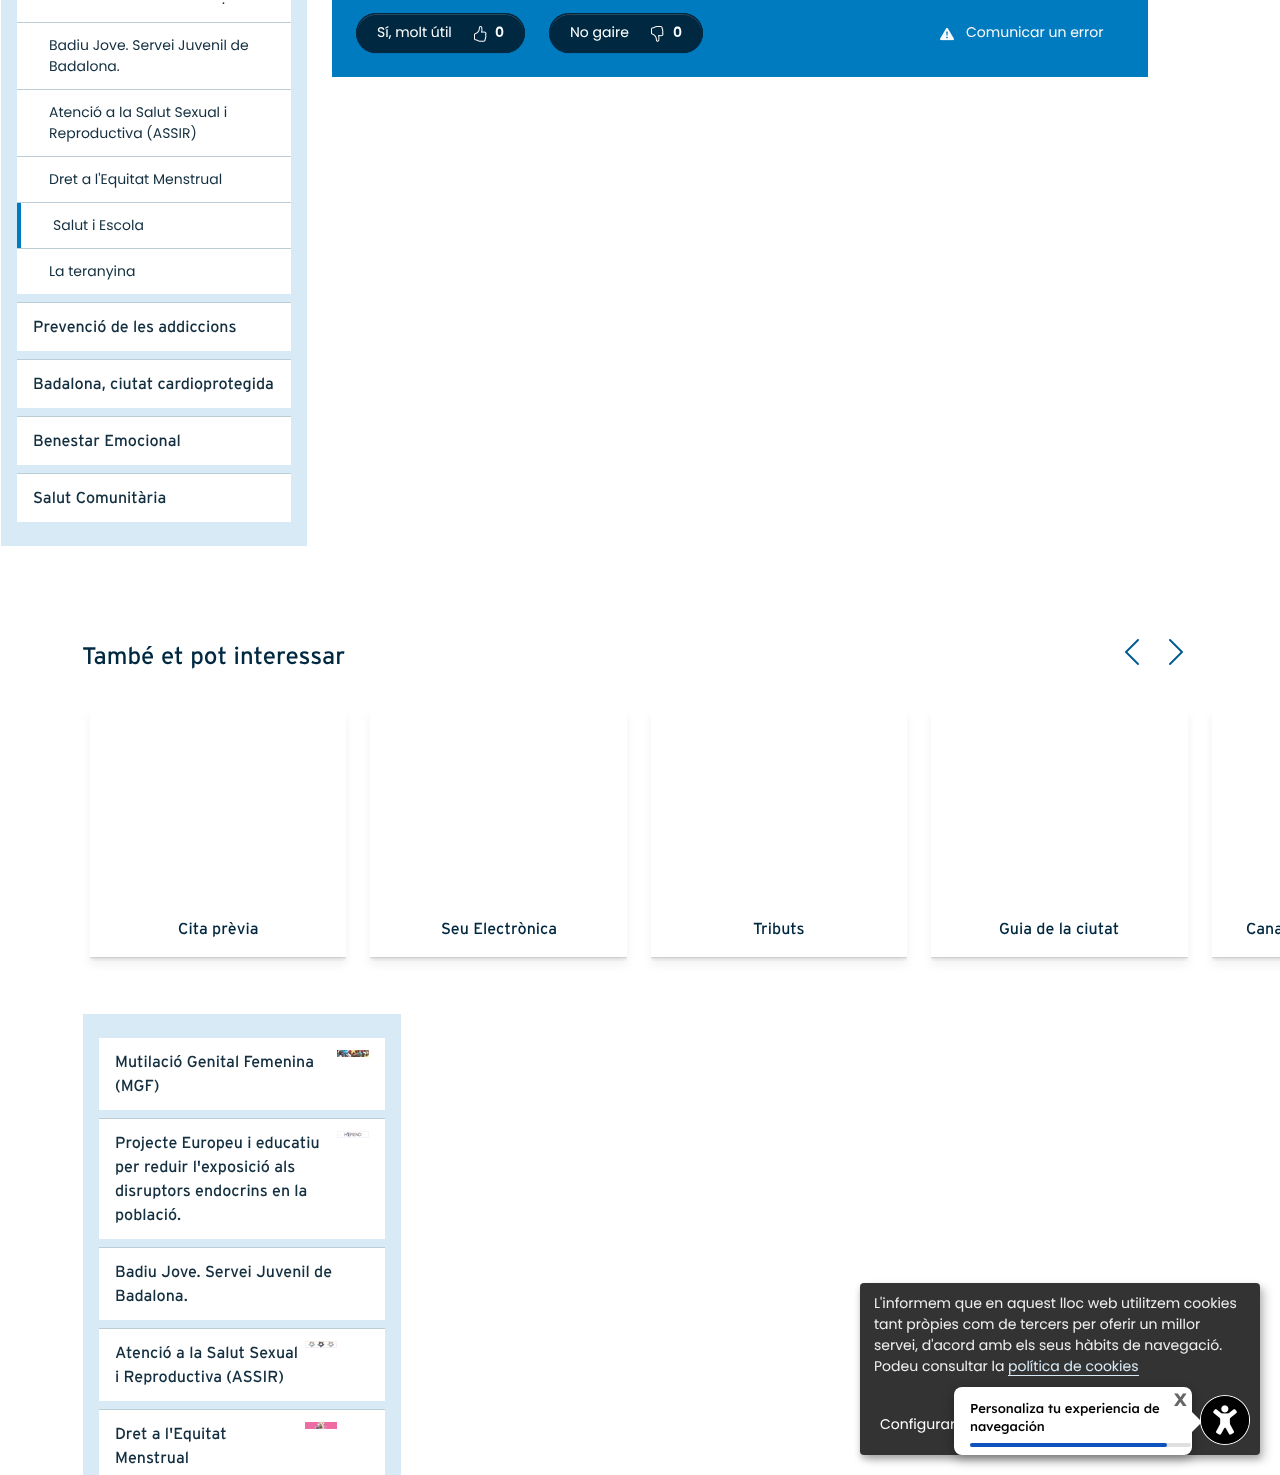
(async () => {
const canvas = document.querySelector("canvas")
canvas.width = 1280
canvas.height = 1475
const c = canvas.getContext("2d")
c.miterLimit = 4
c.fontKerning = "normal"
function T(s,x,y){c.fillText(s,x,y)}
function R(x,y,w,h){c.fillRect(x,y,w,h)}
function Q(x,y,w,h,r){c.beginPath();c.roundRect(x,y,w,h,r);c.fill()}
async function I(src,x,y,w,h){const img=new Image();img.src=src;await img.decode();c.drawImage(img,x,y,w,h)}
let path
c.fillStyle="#fff"
R(0,0,1280,1475)
c.fillStyle="#d8eaf5"
R(1,0,306,546)
c.fillStyle="#fff"
R(17,0,274,22)
c.font="14px Poppins"
c.fillStyle="#132f40"
T(".",222,4)
c.fillStyle="#bdcdd6"
R(17,22,274,1)
c.fillStyle="#fff"
R(17,23,274,66)
c.fillStyle="#132f40"
T("Badiu Jove. Servei Juvenil de",49,50)
T("Badalona.",49,71)
c.fillStyle="#bdcdd6"
R(17,89,274,1)
c.fillStyle="#fff"
R(17,90,274,66)
c.fillStyle="#132f40"
T("Atenció a la Salut Sexual i",49,117)
T("Reproductiva (ASSIR)",49,138)
c.fillStyle="#bdcdd6"
R(17,156,274,1)
c.fillStyle="#fff"
R(17,157,274,45)
c.fillStyle="#132f40"
T("Dret a l'Equitat Menstrual",49,184)
c.fillStyle="#bdcdd6"
R(17,202,274,1)
c.fillStyle="#fff"
R(21,203,270,45)
c.fillStyle="#007bc0"
R(17,203,4,45)
c.fillStyle="#132f40"
T("Salut i Escola",53,230)
c.fillStyle="#bdcdd6"
R(17,248,274,1)
c.fillStyle="#fff"
R(17,249,274,45)
c.fillStyle="#132f40"
T("La teranyina",49,276)
c.fillStyle="#bdcdd6"
R(17,302,274,1)
c.fillStyle="#fff"
R(17,303,274,48)
c.font="16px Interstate"
c.fillStyle="#132f40"
T("Prevenció de les addiccions",33,332)
c.fillStyle="#bdcdd6"
R(17,359,274,1)
c.fillStyle="#fff"
R(17,360,274,48)
c.fillStyle="#132f40"
T("Badalona, ciutat cardioprotegida",33,389)
c.fillStyle="#bdcdd6"
R(17,416,274,1)
c.fillStyle="#fff"
R(17,417,274,48)
c.fillStyle="#132f40"
T("Benestar Emocional",33,446)
c.fillStyle="#bdcdd6"
R(17,473,274,1)
c.fillStyle="#fff"
R(17,474,274,48)
c.fillStyle="#132f40"
T("Salut Comunitària",33,503)
c.fillStyle="#007bc0"
R(332,0,816,77)
c.fillStyle="#00000012"
c.filter="blur(0.5px)"
c.beginPath()
c.roundRect(356,14,169,40,20)
c.fill()
c.filter="none"
c.fillStyle="#002840"
Q(356,13,169,40,20)
c.fillStyle="#26485d"
path = new Path2D("M376 15h129c10 0 19 9 19 19v-1c0-10-9-19-19-19h-129c-10 0-19 9-19 19v1c0-10 9-19 19-19z")
c.fill(path)
c.beginPath()
c.roundRect(356.5,13.5,168,39,19.5)
c.strokeStyle="#002840"
c.stroke()
c.font="14px Poppins"
c.fillStyle="#fff"
T("Sí, molt útil",377,37)
await I("1.png",474,26,13,16)
c.font="600 14px Poppins"
T("0",495,37)
c.fillStyle="#00000012"
c.filter="blur(0.5px)"
c.beginPath()
c.roundRect(549,14,154,40,20)
c.fill()
c.filter="none"
c.fillStyle="#002840"
Q(549,13,154,40,20)
c.fillStyle="#26485d"
path = new Path2D("M569 15h114c10 0 19 9 19 19v-1c0-10-9-19-19-19h-114c-10 0-19 9-19 19v1c0-10 9-19 19-19z")
c.fill(path)
c.beginPath()
c.roundRect(549.5,13.5,153,39,19.5)
c.stroke()
c.font="14px Poppins"
c.fillStyle="#fff"
T("No gaire",570,37)
await I("2.png",651,26,13,16)
c.font="600 14px Poppins"
T("0",673,37)
await I("3.png",940,27,14,14)
c.font="14px Poppins"
c.fillStyle="#f8f9fa"
T("Comunicar un error",966,37)
c.font="24px Interstate"
c.fillStyle="#002840"
T("També et pot interessar",82,664)
await I("4.png",1125,639,14,26)
await I("5.png",1169,639,14,26)
c.save()
path = new Path2D("M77 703h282v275h-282zm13 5h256v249h-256z")
c.clip(path,"evenodd")
c.fillStyle="#0000000d"
c.filter="blur(4px)"
c.beginPath()
c.rect(90,716,256,249)
c.fill()
c.filter="none"
c.restore()
c.save()
c.beginPath()
c.rect(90,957,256,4)
c.clip()
c.fillStyle="#0000000d"
c.filter="blur(2px)"
c.beginPath()
c.rect(90,712,256,249)
c.fill()
c.filter="none"
c.restore()
c.save()
c.beginPath()
c.rect(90,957,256,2)
c.clip()
c.fillStyle="#0000000d"
c.filter="blur(1px)"
c.beginPath()
c.rect(90,710,256,249)
c.fill()
c.filter="none"
c.restore()
c.save()
c.beginPath()
c.rect(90,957,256,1)
c.clip()
c.fillStyle="#0000000d"
c.filter="blur(0.5px)"
c.beginPath()
c.rect(90,709,256,249)
c.fill()
c.filter="none"
c.restore()
c.font="16px Interstate"
T("Cita prèvia",178,934)
c.save()
path = new Path2D("M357 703h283v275h-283zm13 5h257v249h-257z")
c.clip(path,"evenodd")
c.fillStyle="#0000000d"
c.filter="blur(4px)"
c.beginPath()
c.rect(370,716,257,249)
c.fill()
c.filter="none"
c.restore()
c.save()
c.beginPath()
c.rect(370,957,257,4)
c.clip()
c.fillStyle="#0000000d"
c.filter="blur(2px)"
c.beginPath()
c.rect(370,712,257,249)
c.fill()
c.filter="none"
c.restore()
c.save()
c.beginPath()
c.rect(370,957,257,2)
c.clip()
c.fillStyle="#0000000d"
c.filter="blur(1px)"
c.beginPath()
c.rect(370,710,257,249)
c.fill()
c.filter="none"
c.restore()
c.save()
c.beginPath()
c.rect(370,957,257,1)
c.clip()
c.fillStyle="#0000000d"
c.filter="blur(0.5px)"
c.beginPath()
c.rect(370,709,257,249)
c.fill()
c.filter="none"
c.restore()
T("Seu Electrònica",441,934)
c.save()
path = new Path2D("M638 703h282v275h-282zm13 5h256v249h-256z")
c.clip(path,"evenodd")
c.fillStyle="#0000000d"
c.filter="blur(4px)"
c.beginPath()
c.rect(651,716,256,249)
c.fill()
c.filter="none"
c.restore()
c.save()
c.beginPath()
c.rect(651,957,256,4)
c.clip()
c.fillStyle="#0000000d"
c.filter="blur(2px)"
c.beginPath()
c.rect(651,712,256,249)
c.fill()
c.filter="none"
c.restore()
c.save()
c.beginPath()
c.rect(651,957,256,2)
c.clip()
c.fillStyle="#0000000d"
c.filter="blur(1px)"
c.beginPath()
c.rect(651,710,256,249)
c.fill()
c.filter="none"
c.restore()
c.save()
c.beginPath()
c.rect(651,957,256,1)
c.clip()
c.fillStyle="#0000000d"
c.filter="blur(0.5px)"
c.beginPath()
c.rect(651,709,256,249)
c.fill()
c.filter="none"
c.restore()
T("Tributs",753,934)
c.save()
path = new Path2D("M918 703h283v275h-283zm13 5h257v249h-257z")
c.clip(path,"evenodd")
c.fillStyle="#0000000d"
c.filter="blur(4px)"
c.beginPath()
c.rect(931,716,257,249)
c.fill()
c.filter="none"
c.restore()
c.save()
c.beginPath()
c.rect(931,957,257,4)
c.clip()
c.fillStyle="#0000000d"
c.filter="blur(2px)"
c.beginPath()
c.rect(931,712,257,249)
c.fill()
c.filter="none"
c.restore()
c.save()
c.beginPath()
c.rect(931,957,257,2)
c.clip()
c.fillStyle="#0000000d"
c.filter="blur(1px)"
c.beginPath()
c.rect(931,710,257,249)
c.fill()
c.filter="none"
c.restore()
c.save()
c.beginPath()
c.rect(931,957,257,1)
c.clip()
c.fillStyle="#0000000d"
c.filter="blur(0.5px)"
c.beginPath()
c.rect(931,709,257,249)
c.fill()
c.filter="none"
c.restore()
T("Guia de la ciutat",999,934)
c.save()
path = new Path2D("M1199 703h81v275h-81zm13 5h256v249h-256z")
c.clip(path,"evenodd")
c.fillStyle="#0000000d"
c.filter="blur(4px)"
c.beginPath()
c.rect(1212,716,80,249)
c.fill()
c.filter="none"
c.restore()
c.save()
c.beginPath()
c.rect(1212,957,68,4)
c.clip()
c.fillStyle="#0000000d"
c.filter="blur(2px)"
c.beginPath()
c.rect(1212,712,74,249)
c.fill()
c.filter="none"
c.restore()
c.save()
c.beginPath()
c.rect(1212,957,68,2)
c.clip()
c.fillStyle="#0000000d"
c.filter="blur(1px)"
c.beginPath()
c.rect(1212,710,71,249)
c.fill()
c.filter="none"
c.restore()
c.save()
c.beginPath()
c.rect(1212,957,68,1)
c.clip()
c.fillStyle="#0000000d"
c.filter="blur(0.5px)"
c.beginPath()
c.rect(1212,709,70,249)
c.fill()
c.filter="none"
c.restore()
T("Cana",1246,934)
c.fillStyle="#d8eaf5"
R(83,1014,318,461)
c.fillStyle="#fff"
R(99,1038,286,72)
c.fillStyle="#132f40"
T("Mutilació Genital Femenina",115,1067)
await I("6.png",337,1050,32,7)
T("(MGF)",115,1091)
c.fillStyle="#bdcdd6"
R(99,1118,286,1)
c.fillStyle="#fff"
R(99,1119,286,120)
await I("7.png",337,1131,32,7)
c.fillStyle="#132f40"
T("Projecte Europeu i educatiu",115,1148)
T("per reduir l'exposició als",115,1172)
T("disruptors endocrins en la",115,1196)
T("població.",115,1220)
c.fillStyle="#bdcdd6"
R(99,1247,286,1)
c.fillStyle="#fff"
R(99,1248,286,72)
c.fillStyle="#132f40"
T("Badiu Jove. Servei Juvenil de",115,1277)
T("Badalona.",115,1301)
c.fillStyle="#bdcdd6"
R(99,1328,286,1)
c.fillStyle="#fff"
R(99,1329,286,72)
c.fillStyle="#132f40"
T("Atenció a la Salut Sexual",115,1358)
await I("8.png",305,1341,32,7)
T("i Reproductiva (ASSIR)",115,1382)
c.fillStyle="#bdcdd6"
R(99,1409,286,1)
c.fillStyle="#fff"
R(99,1410,286,65)
await I("9.png",305,1422,32,7)
c.fillStyle="#132f40"
T("Dret a l'Equitat",115,1439)
T("Menstrual",115,1463)
c.fillStyle="#00000030"
c.filter="blur(5px)"
c.beginPath()
c.roundRect(865,1288,400,172,4)
c.fill()
c.filter="none"
c.fillStyle="#00000033"
c.filter="blur(3px)"
c.beginPath()
c.roundRect(860,1287,400,172,4)
c.fill()
c.filter="none"
c.fillStyle="#333"
Q(860,1283,400,172,4)
c.font="14px Poppins"
c.fillStyle="#eee"
T("L'informem que en aquest lloc web utilitzem cookies",874,1308)
T("tant pròpies com de tercers per oferir un millor",874,1329)
T("servei, d'acord amb els seus hàbits de navegació.",874,1350)
T("Podeu consultar la",874,1371)
c.fillStyle="#d8eaf5"
T("política de cookies",1008,1371)
R(1008,1375,131,1)
c.fillStyle="#fff"
T("Configurar",880,1429)
c.fillStyle="#0000004d"
c.filter="blur(6px)"
c.beginPath()
c.roundRect(954,1391,238,68,8)
c.fill()
c.filter="none"
c.fillStyle="#fff"
Q(954,1387,238,68,8)
c.font="bold 18px Lexend"
c.fillStyle="#666"
T("X",1174,1406)
c.font="500 13px Lexend"
c.fillStyle="#000"
T("Personaliza tu experiencia de",970,1413)
T("navegación",970,1431)
c.fillStyle="#fff"
path = new Path2D("M1192 1432v-20l10 10z")
c.fill(path)
c.fillStyle="#e0e0e0"
Q(970,1443,221,4,2)
c.fillStyle="#0f52bd"
Q(970,1443,197,4,2)
await I("10.png",1200,1395,50,50)
})()
